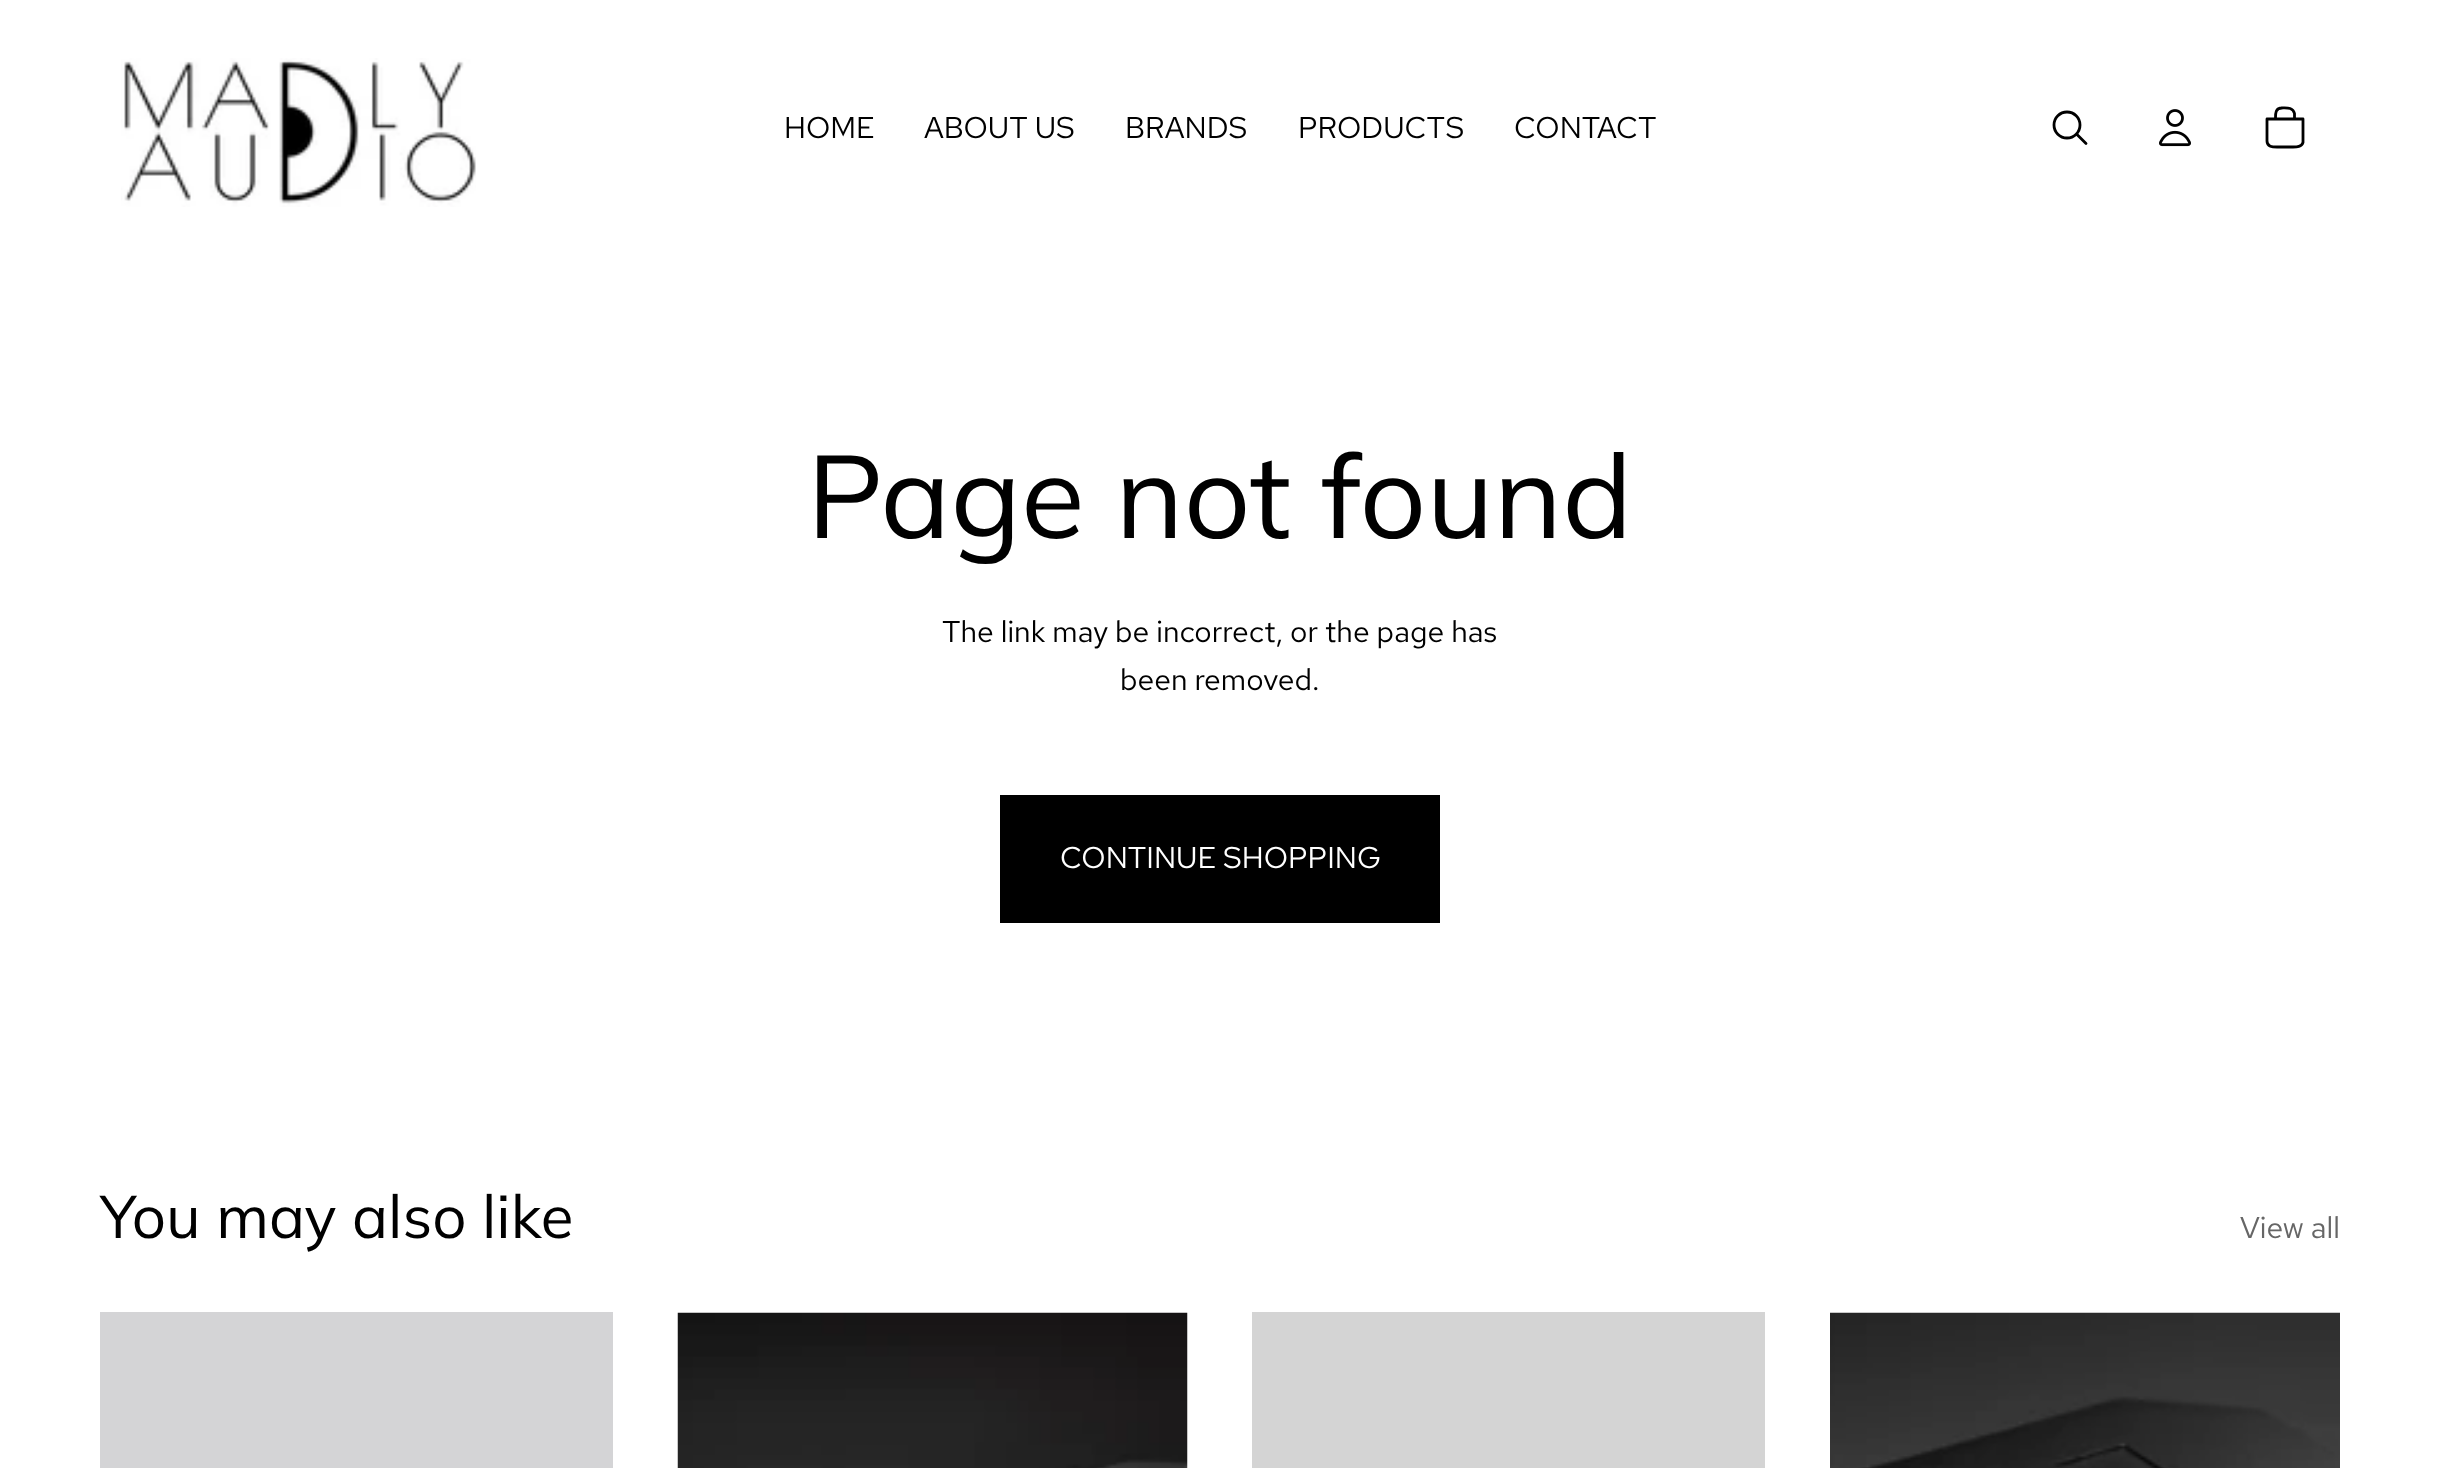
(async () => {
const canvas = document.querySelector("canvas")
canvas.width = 2439
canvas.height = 1468
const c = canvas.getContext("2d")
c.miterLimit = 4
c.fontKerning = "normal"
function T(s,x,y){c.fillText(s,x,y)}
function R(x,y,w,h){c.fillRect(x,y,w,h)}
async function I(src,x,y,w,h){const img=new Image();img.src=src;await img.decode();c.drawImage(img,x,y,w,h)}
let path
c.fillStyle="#fff"
R(0,0,2439,1468)
await I("1.png",121,58,355,149)
c.font="30px Red Hat Text"
c.fillStyle="#000"
T("HOME",784,138)
T("ABOUT US",924,138)
T("BRANDS",1125,138)
T("PRODUCTS",1298,138)
T("CONTACT",1514,138)
c.beginPath()
c.arc(2067,125,13,0,7)
c.strokeStyle="#000"
c.lineWidth=2.8
c.stroke()
path = new Path2D("M2077 134.5l9 9")
c.lineCap="round"
c.lineJoin="round"
c.stroke(path)
await I("2.png",2159,109,32,38)
path = new Path2D("M2267 119h36v23.5c-1.5 4.5-6 4.5-10 4.5h-16c-4.5 0-10 0-10-6zm14.5-11c5 0 11.5-1 13 5.5v5.5h-19c0-5-.5-11 6.5-11")
c.stroke(path)
c.font="117px Muli"
T("Page not found",807,538)
c.font="30px Red Hat Text"
T("The link may be incorrect, or the page has",942,642)
T("been removed.",1120,690)
R(1000,795,440,128)
c.fillStyle="#fff"
T("CONTINUE SHOPPING",1060,868)
c.font="60px Muli"
c.fillStyle="#000"
T("You may also like",100,1238)
c.font="30px Red Hat Text"
c.fillStyle="#666"
T("View all",2240,1238)
c.fillStyle="#d4d4d6"
R(100,1312,513,156)
await I("3.png",677,1312,511,156)
c.fillStyle="#d4d4d4"
R(1252,1312,513,156)
await I("4.png",1830,1312,510,156)
})()
